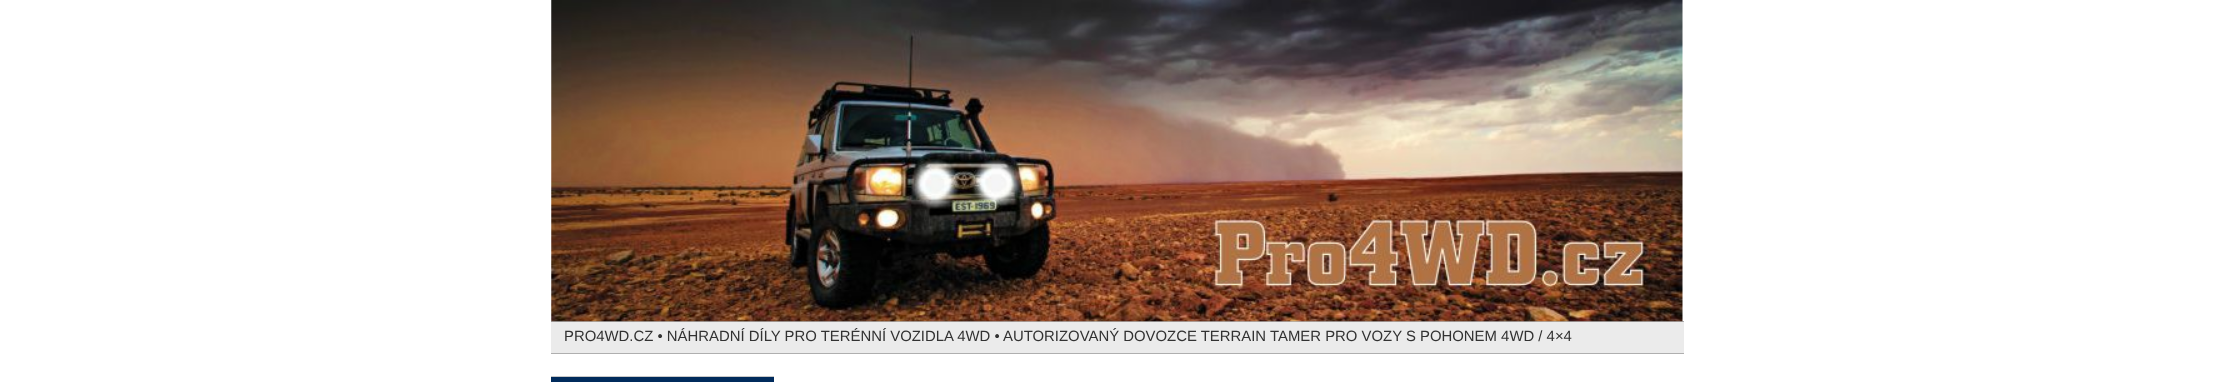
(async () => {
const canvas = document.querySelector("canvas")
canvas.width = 2234
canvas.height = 382
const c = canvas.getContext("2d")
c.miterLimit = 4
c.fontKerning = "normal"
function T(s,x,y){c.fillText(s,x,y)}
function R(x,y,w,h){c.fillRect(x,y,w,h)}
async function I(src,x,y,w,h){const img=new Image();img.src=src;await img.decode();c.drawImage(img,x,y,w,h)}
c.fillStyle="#fff"
R(0,0,2234,382)
c.fillStyle="#afafaf"
R(551,321,1133,1)
await I("1.png",551,0,1132,322)
c.fillStyle="#ebebeb"
R(551,322,1133,31)
c.fillStyle="#afafaf"
R(551,353,1133,1)
c.font="14.9px Liberation Sans"
c.fillStyle="#323232"
T("PRO4WD.CZ • NÁHRADNÍ DÍLY PRO TERÉNNÍ VOZIDLA 4WD • AUTORIZOVANÝ DOVOZCE TERRAIN TAMER PRO VOZY S POHONEM 4WD / 4×4",564,341)
c.fillStyle="#002b5c"
R(551,377,223,5)
c.fillStyle="#c8c8c8"
R(551,376,223,1)
})()
